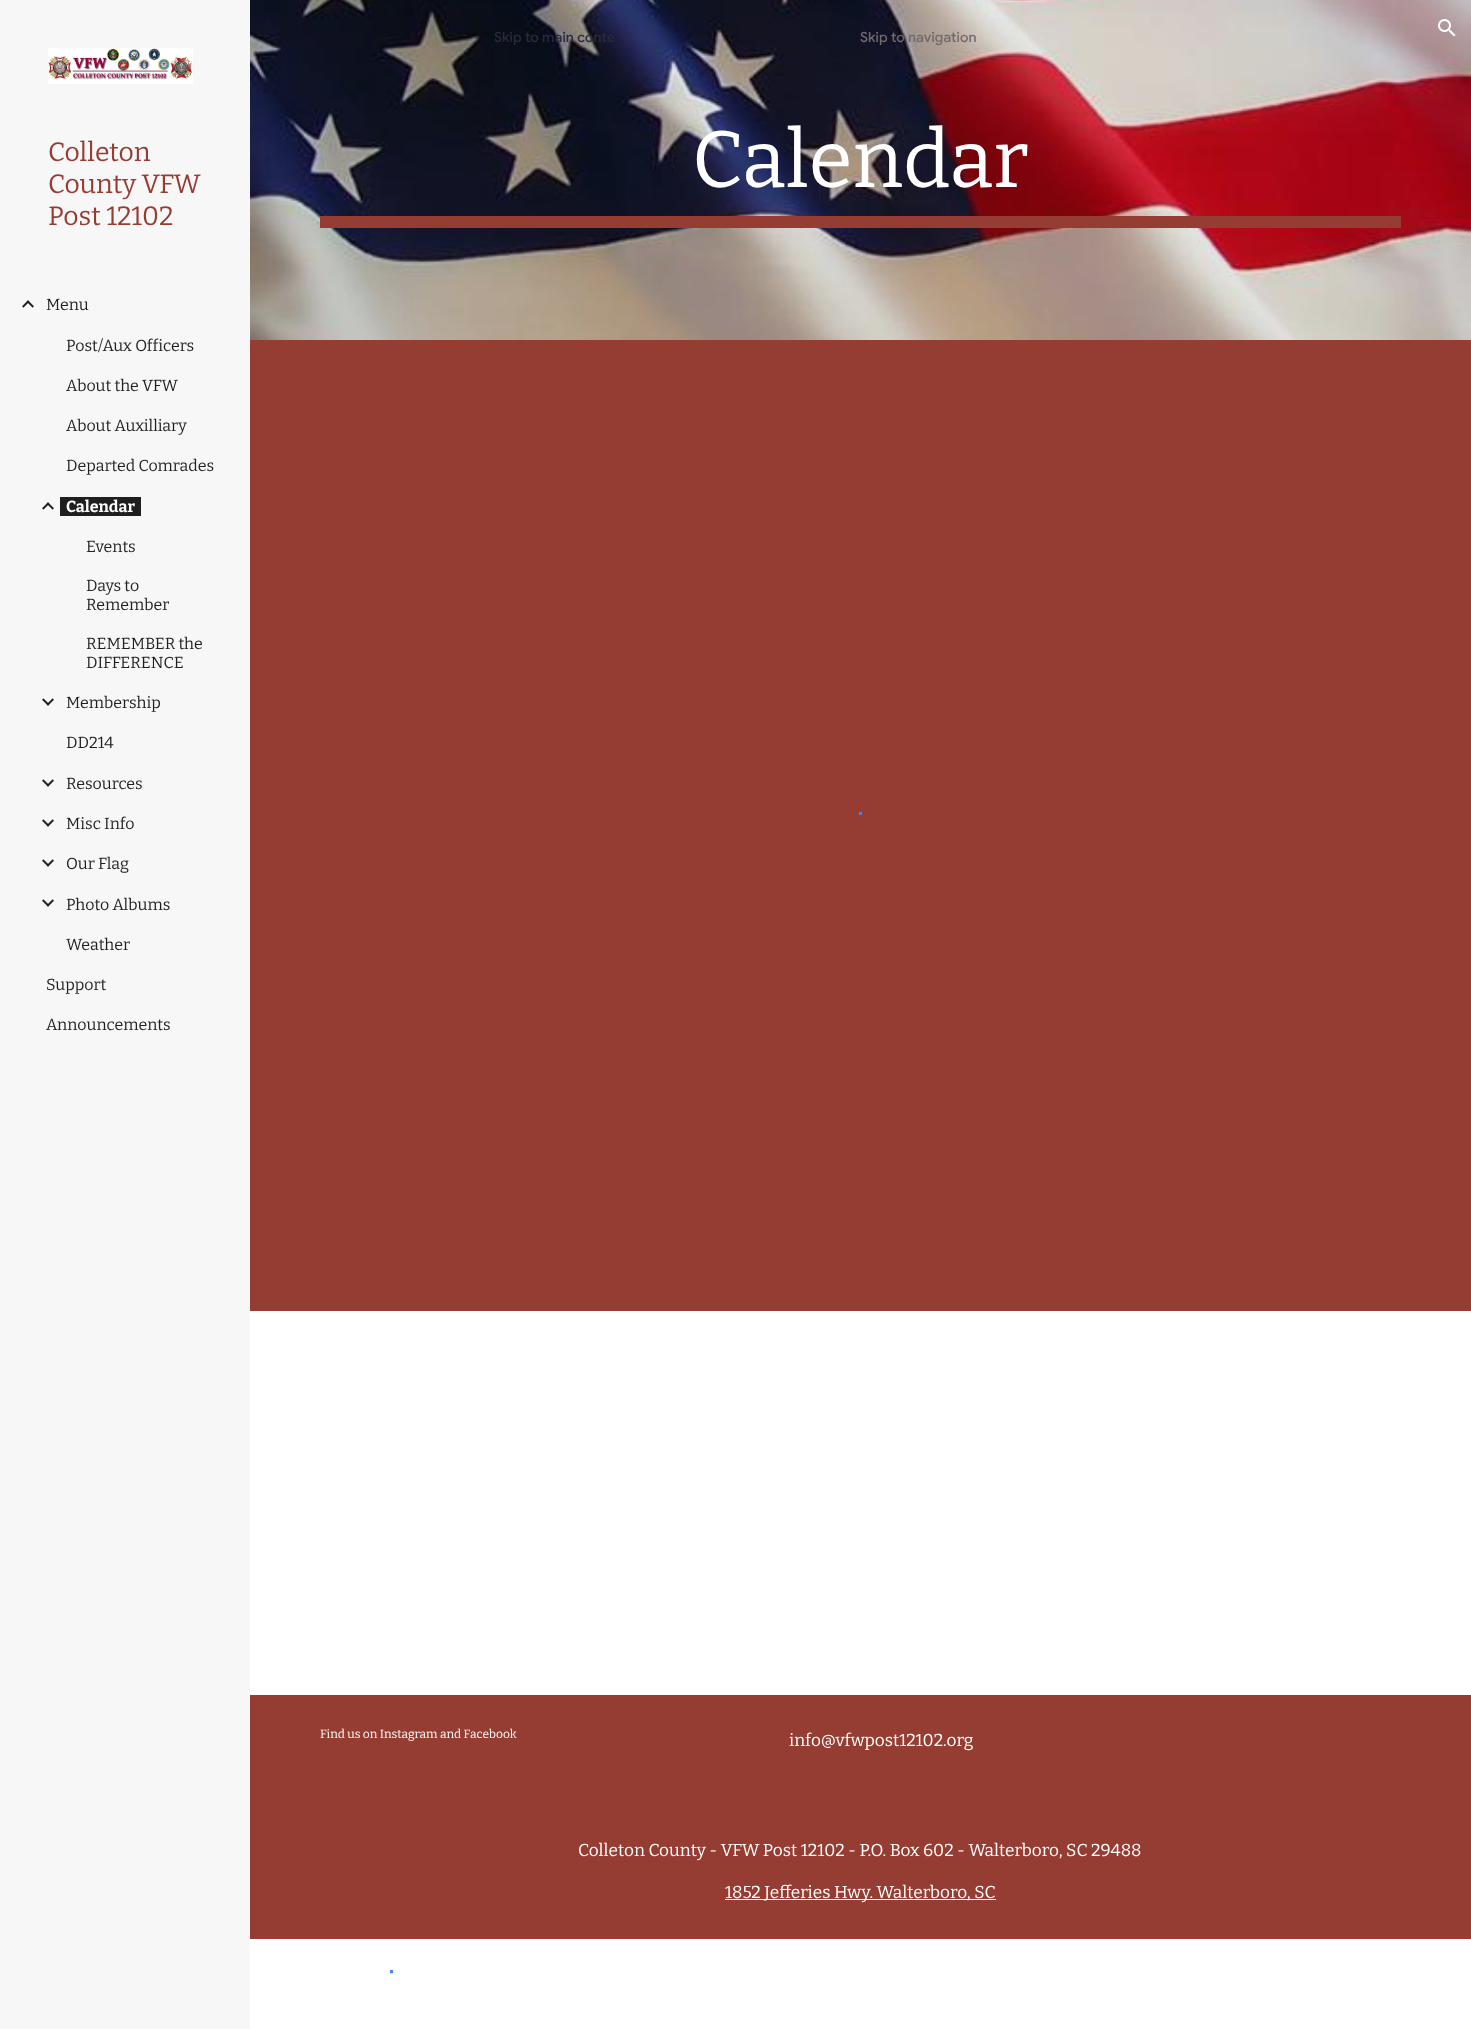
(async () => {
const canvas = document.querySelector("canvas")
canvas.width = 1471
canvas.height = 2029
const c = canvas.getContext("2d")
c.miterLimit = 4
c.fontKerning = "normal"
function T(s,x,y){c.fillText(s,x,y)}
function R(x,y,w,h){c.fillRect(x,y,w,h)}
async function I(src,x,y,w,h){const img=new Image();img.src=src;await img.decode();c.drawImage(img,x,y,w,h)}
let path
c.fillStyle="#fff"
R(0,0,1471,2029)
await I("5.png",250,0,1221,340)
c.letterSpacing="0.1px"
c.font="500 14px Google Sans"
c.fillStyle="#2a2b3a"
T("Skip to main conte",494,42)
c.fillStyle="#71696c"
T("Skip to navigation",860,42)
await I("1.png",1438,19,18,18)
c.fillStyle="#f7f7f7"
R(0,0,250,2029)
await I("2.png",48,48,145,36)
c.letterSpacing="0px"
c.font="26.5px Bitter"
c.fillStyle="#963d33"
T("Colleton",48,161)
T("County VFW",48,193)
T("Post 12102",48,225)
await I("3.png",22,300,12,8)
c.font="16px Bitter"
c.fillStyle="#1f1f1f"
T("Menu",46,310)
T("Post/Aux Officers",66,351)
T("About the VFW",66,391)
T("About Auxilliary",66,431)
T("Departed Comrades",66,471)
await I("3.png",42,502,12,8)
R(60,497,81,19)
c.font="bold 16px Bitter"
c.fillStyle="#fff"
T("Calendar",66,512)
c.font="16px Bitter"
c.fillStyle="#1f1f1f"
T("Events",86,552)
T("Days to",86,591)
T("Remember",86,610)
T("REMEMBER the",86,649)
T("DIFFERENCE",86,668)
await I("4.png",42,698,12,8)
T("Membership",66,708)
T("DD214",66,748)
await I("4.png",42,779,12,8)
T("Resources",66,789)
await I("4.png",42,819,12,8)
T("Misc Info",66,829)
await I("4.png",42,859,12,8)
T("Our Flag",66,869)
await I("4.png",42,899,12,8)
T("Photo Albums",66,910)
T("Weather",66,950)
T("Support",46,990)
T("Announcements",46,1030)
c.font="80px Bitter"
c.fillStyle="#fff"
T("Calendar",692,187)
c.fillStyle="#963d33"
R(320,216,1081,12)
R(250,340,1221,971)
c.save()
c.beginPath()
c.rect(847,812,14,28)
c.clip()
path = new Path2D("M859.5 813c16.5-1.5 18.5 23.5 2 25")
c.strokeStyle="#4384f2"
c.lineWidth=3
c.stroke(path)
c.restore()
c.save()
c.beginPath()
c.rect(859,812,3,28)
c.clip()
path = new Path2D("M852 835c-3-3-4-7.5-3.5-11.5c1-3 2.5-6 5.5-8c12-8.5 25 9 15 19.5")
c.strokeStyle="#4384f2"
c.lineWidth=3
c.stroke(path)
c.restore()
c.save()
c.beginPath()
c.rect(861,812,14,28)
c.clip()
path = new Path2D("M859.5 838c-16.5-1.5-14.5-26.5 2-25")
c.strokeStyle="#4384f2"
c.lineWidth=3
c.stroke(path)
c.restore()
c.save()
c.beginPath()
c.rect(847,812,14,28)
c.clip()
path = new Path2D("M859.5 813c16.5-1.5 18.5 23.5 2 25")
c.strokeStyle="#4384f2"
c.lineWidth=3
c.stroke(path)
c.restore()
c.save()
c.beginPath()
c.rect(861,812,14,28)
c.clip()
path = new Path2D("M859.5 838c-16.5-1.5-14.5-26.5 2-25")
c.strokeStyle="#4384f2"
c.lineWidth=3
c.stroke(path)
c.restore()
c.save()
c.beginPath()
c.rect(847,812,14,28)
c.clip()
path = new Path2D("M859.5 813c16.5-1.5 18.5 23.5 2 25")
c.strokeStyle="#4384f2"
c.lineWidth=3
c.stroke(path)
c.restore()
c.save()
c.beginPath()
c.rect(861,812,14,28)
c.clip()
path = new Path2D("M859.5 838c-16.5-1.5-14.5-26.5 2-25")
c.strokeStyle="#4384f2"
c.lineWidth=3
c.stroke(path)
c.restore()
c.save()
c.beginPath()
c.rect(847,812,14,28)
c.clip()
path = new Path2D("M859.5 813c16.5-1.5 18.5 23.5 2 25")
c.strokeStyle="#4384f2"
c.lineWidth=3
c.stroke(path)
c.restore()
c.save()
c.beginPath()
c.rect(861,812,14,28)
c.clip()
path = new Path2D("M859.5 838c-16.5-1.5-14.5-26.5 2-25")
c.strokeStyle="#4384f2"
c.lineWidth=3
c.stroke(path)
c.restore()
R(250,1695,1221,244)
c.font="12px Bitter"
c.fillStyle="#fff"
T("Find us on Instagram and Facebook",320,1738)
c.font="17.3px Bitter"
T("info@vfwpost12102.org",789,1746)
T("Colleton County - VFW Post 12102 - P.O. Box 602 - Walterboro, SC 29488",578,1856)
R(725,1899,271,1)
T("1852 Jefferies Hwy. Walterboro, SC",725,1898)
c.save()
c.beginPath()
c.rect(378,1970,14,28)
c.clip()
path = new Path2D("M390.5 1971.5c16.5-1.5 18.5 23.5 2.5 25")
c.strokeStyle="#4486f4"
c.lineWidth=3
c.stroke(path)
c.restore()
c.save()
c.beginPath()
c.rect(390,1970,3,28)
c.clip()
path = new Path2D("M383 1993c-2-2.5-3.5-5.5-3.5-9c0-15 22-17 25-2.5c.5 4-.5 8.5-3.5 11.5")
c.strokeStyle="#4486f4"
c.lineWidth=3
c.stroke(path)
c.restore()
c.save()
c.beginPath()
c.rect(392,1970,14,28)
c.clip()
path = new Path2D("M390.5 1996.5c-16-1.5-14-26.5 2.5-25m-2.5 25c-16-1.5-14-26.5 2.5-25m-2.5 25c-16-1.5-14-26.5 2.5-25m-2.5 25c-16-1.5-14-26.5 2.5-25")
c.strokeStyle="#4486f4"
c.lineWidth=3
c.stroke(path)
c.restore()
})()
